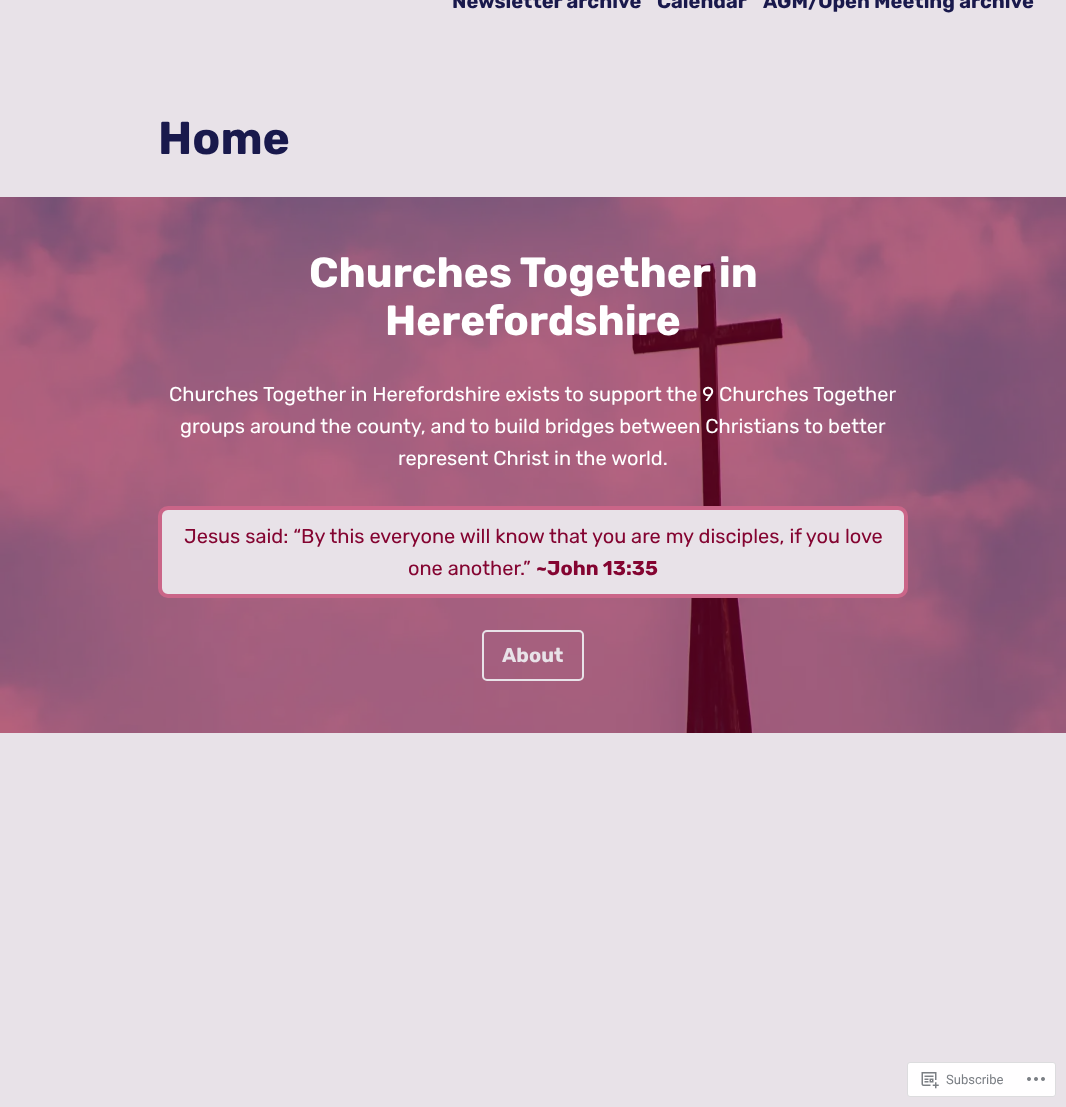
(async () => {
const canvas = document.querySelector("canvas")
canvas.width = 1066
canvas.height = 1107
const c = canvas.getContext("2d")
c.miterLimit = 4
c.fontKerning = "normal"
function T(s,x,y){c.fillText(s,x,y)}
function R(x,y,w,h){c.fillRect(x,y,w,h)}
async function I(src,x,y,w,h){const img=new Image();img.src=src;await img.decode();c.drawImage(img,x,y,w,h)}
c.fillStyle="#e8e2e8"
R(0,0,1066,1107)
c.font="bold 20px Rubik"
c.fillStyle="#19194c"
T("Newsletter archive",452,8)
T("Calendar",657,8)
T("AGM/Open Meeting archive",763,8)
c.font="bold 46px Rubik"
T("Home",158,154)
await I("1.png",0,197,1066,536)
c.font="bold 42px Rubik"
c.fillStyle="#fff"
T("Churches Together in",309,287)
T("Herefordshire",385,335)
c.font="20px Rubik"
T("Churches Together in Herefordshire exists to support the 9 Churches Together",169,401)
T("groups around the county, and to build bridges between Christians to better",180,433)
T("represent Christ in the world.",398,465)
c.fillStyle="#e8e2e8"
c.beginPath()
c.roundRect(160,508,746,88,8)
c.fill()
c.strokeStyle="#ca6588"
c.lineWidth=4
c.stroke()
c.fillStyle="#840431"
T("Jesus said: “By this everyone will know that you are my disciples, if you love",184,543)
T("one another.”",408,575)
c.font="bold 20px Rubik"
T("~John 13:35",536,575)
c.beginPath()
c.roundRect(483,631,100,49,4)
c.strokeStyle="#e8e2e8"
c.lineWidth=2
c.stroke()
c.fillStyle="#e8e2e8"
T("About",502,662)
c.fillStyle="#fffeff"
c.beginPath()
c.roundRect(907.5,1062.5,148,34,2.5)
c.fill()
c.strokeStyle="#dcdcde"
c.lineWidth=1
c.stroke()
await I("2.png",921,1072,18,17)
c.font="13px Roboto"
c.fillStyle="#7a7e84"
T("Subscribe",946,1084)
await I("3.png",1027,1077,18,4)
})()
